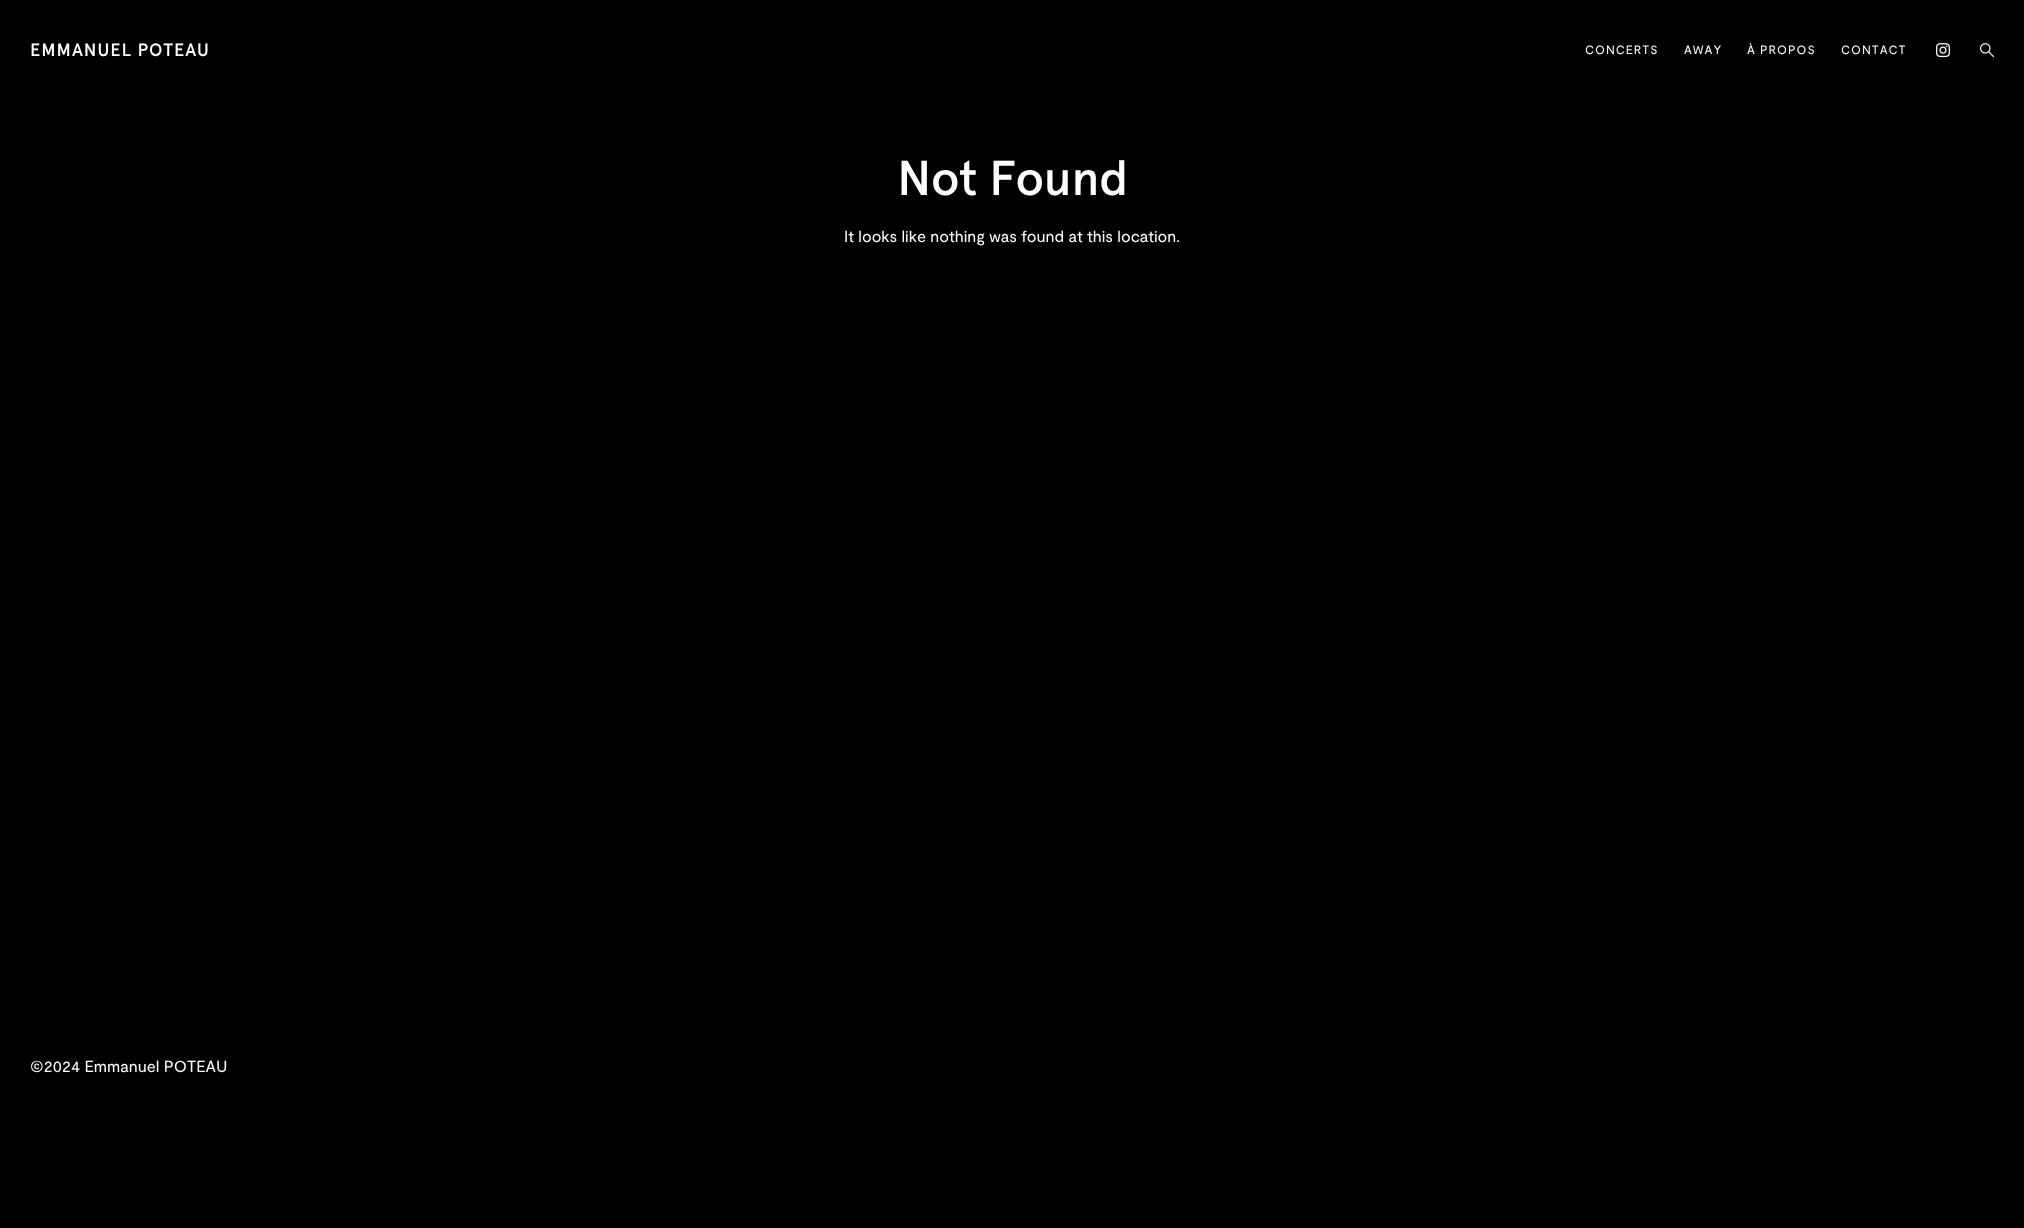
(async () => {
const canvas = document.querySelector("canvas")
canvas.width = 2024
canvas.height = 1228
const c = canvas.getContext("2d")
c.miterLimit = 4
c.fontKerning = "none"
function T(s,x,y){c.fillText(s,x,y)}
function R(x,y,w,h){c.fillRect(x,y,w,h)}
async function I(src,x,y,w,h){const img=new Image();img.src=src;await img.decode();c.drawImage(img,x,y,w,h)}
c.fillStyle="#000"
R(0,0,2024,1228)
c.letterSpacing="1px"
c.font="500 18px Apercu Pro"
c.fillStyle="#fff"
T("EMMANUEL POTEAU",30,56)
c.font="12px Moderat"
T("CONCERTS",1585,54)
T("AWAY",1684,54)
T("À PROPOS",1747,54)
T("CONTACT",1841,54)
await I("1.png",1936,43,14,15)
await I("2.png",1980,43,14,15)
c.letterSpacing="-0.75px"
c.font="500 49px Apercu Pro"
T("Not Found",897,195)
c.letterSpacing="0px"
c.font="16px Moderat"
T("It looks like nothing was found at",844,242)
T("this location.",1087,242)
T("©2024 Emmanuel POTEAU",30,1072)
})()
